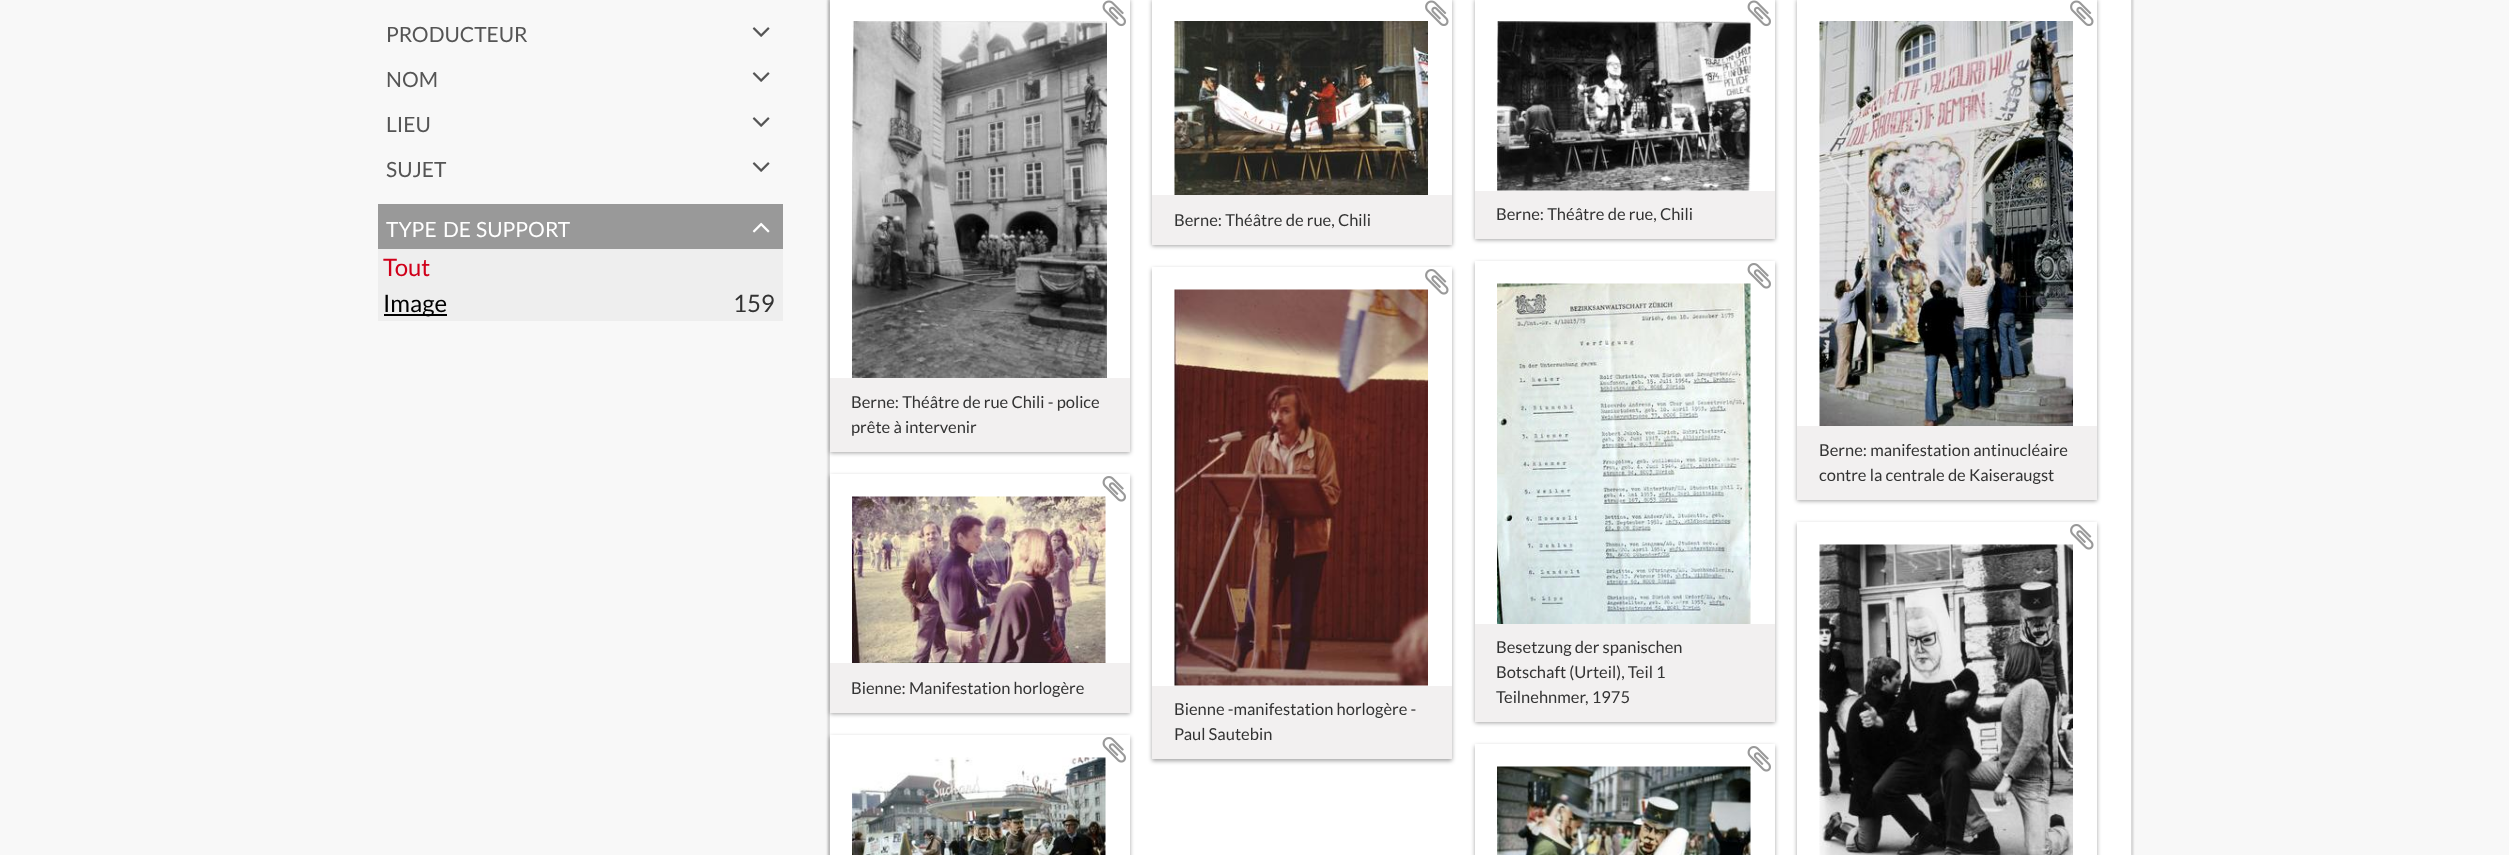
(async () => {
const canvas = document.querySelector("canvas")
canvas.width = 2509
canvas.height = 855
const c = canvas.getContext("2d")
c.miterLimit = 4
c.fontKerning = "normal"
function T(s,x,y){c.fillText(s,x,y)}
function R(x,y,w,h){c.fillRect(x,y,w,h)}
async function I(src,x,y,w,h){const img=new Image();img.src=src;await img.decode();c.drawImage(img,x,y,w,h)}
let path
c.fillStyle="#f8f8f8"
R(0,0,2509,855)
c.font="21px Lato"
c.fillStyle="#555"
T("PRODUCTEUR",386,42)
await I("1.png",752,27,18,10)
T("NOM",386,87)
await I("1.png",752,72,18,10)
T("LIEU",386,132)
await I("1.png",752,117,18,10)
T("SUJET",386,177)
await I("1.png",752,162,18,10)
c.fillStyle="#999"
R(378,204,405,45)
c.fillStyle="#fff"
T("TYPE",386,237)
T("DE",443,237)
T("SUPPORT",476,237)
await I("2.png",752,222,18,11)
c.fillStyle="#eee"
R(378,249,405,72)
c.font="24px Lato"
c.fillStyle="#d0001a"
T("Tout",383,276)
c.fillStyle="#000"
R(384,314,63,2)
T("Image",383,312)
c.fillStyle="#333"
T("159",733,312)
c.fillStyle="#00000033"
c.filter="blur(1px)"
c.beginPath()
c.roundRect(828,-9,1305,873,6)
c.fill()
c.filter="none"
c.fillStyle="#fff"
c.beginPath()
c.rect(829,-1,1303,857)
c.fill()
c.strokeStyle="#d9d9d9"
c.lineWidth=2
c.stroke()
c.fillStyle="#19191966"
c.filter="blur(2px)"
c.beginPath()
c.rect(1152,0,300,246)
c.fill()
c.filter="none"
c.fillStyle="#fff"
R(1152,0,300,195)
await I("3.png",1174,21,254,174)
c.fillStyle="#f2f0f0"
R(1152,195,300,50)
await I("4.png",1425,0,24,26)
c.font="16.5px Lato"
c.fillStyle="#333"
T("Berne: Théâtre de rue, Chili",1174,226)
c.fillStyle="#19191966"
c.filter="blur(2px)"
c.beginPath()
c.rect(1475,0,300,240)
c.fill()
c.filter="none"
c.fillStyle="#fff"
R(1475,0,300,191)
await I("5.png",1497,21,254,170)
c.fillStyle="#f2f0f0"
R(1475,191,300,48)
await I("6.png",1747,0,24,27)
c.fillStyle="#333"
T("Berne: Théâtre de rue, Chili",1496,220)
c.fillStyle="#19191966"
c.filter="blur(2px)"
c.beginPath()
c.rect(830,0,300,453)
c.fill()
c.filter="none"
c.fillStyle="#fff"
R(830,0,300,378)
await I("7.png",852,21,255,357)
c.fillStyle="#f2f0f0"
R(830,378,300,74)
await I("8.png",1102,0,24,27)
c.fillStyle="#333"
T("Berne: Théâtre de rue Chili - police",851,408)
T("prête à intervenir",851,433)
c.fillStyle="#19191966"
c.filter="blur(2px)"
c.beginPath()
c.rect(1797,0,300,501)
c.fill()
c.filter="none"
c.fillStyle="#fff"
R(1797,0,300,426)
await I("9.png",1819,21,254,405)
c.fillStyle="#f2f0f0"
R(1797,426,300,74)
await I("10.png",2070,0,24,26)
c.fillStyle="#333"
T("Berne: manifestation antinucléaire",1819,456)
T("contre la centrale de Kaiseraugst",1819,481)
c.fillStyle="#19191966"
c.filter="blur(2px)"
c.beginPath()
c.rect(830,476,300,238)
c.fill()
c.filter="none"
c.fillStyle="#fff"
R(830,474,300,189)
await I("11.png",852,496,254,167)
c.fillStyle="#f2f0f0"
R(830,663,300,50)
await I("12.png",1102,476,24,26)
c.fillStyle="#333"
T("Bienne: Manifestation horlogère",851,694)
c.fillStyle="#19191966"
c.filter="blur(2px)"
c.beginPath()
c.rect(1475,263,300,460)
c.fill()
c.filter="none"
c.fillStyle="#fff"
R(1475,261,300,363)
await I("13.png",1497,283,254,341)
c.fillStyle="#f2f0f0"
R(1475,624,300,98)
await I("14.png",1747,263,24,26)
c.fillStyle="#333"
T("Besetzung der spanischen",1496,653)
T("Botschaft (Urteil), Teil 1",1496,678)
T("Teilnehnmer, 1975",1496,703)
c.save()
path = new Path2D("M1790 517h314v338h-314zm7 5h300v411h-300z")
c.clip(path,"evenodd")
c.fillStyle="#19191966"
c.filter="blur(2px)"
c.beginPath()
c.rect(1797,524,300,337)
c.fill()
c.filter="none"
c.restore()
await I("16.png",1819,544,254,311)
await I("15.png",2070,524,24,26)
c.save()
path = new Path2D("M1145 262h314v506h-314zm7 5h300v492h-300z")
c.clip(path,"evenodd")
c.fillStyle="#19191966"
c.filter="blur(2px)"
c.beginPath()
c.rect(1152,269,300,492)
c.fill()
c.filter="none"
c.restore()
await I("17.png",1174,289,254,397)
c.fillStyle="#f2f0f0"
R(1152,686,300,73)
await I("18.png",1425,269,24,26)
c.fillStyle="#333"
T("Bienne -manifestation horlogère -",1174,715)
T("Paul Sautebin",1174,740)
c.fillStyle="#19191966"
c.filter="blur(2px)"
c.beginPath()
c.rect(830,737,300,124)
c.fill()
c.filter="none"
c.fillStyle="#fff"
R(830,735,300,120)
await I("20.png",852,757,254,98)
await I("19.png",1102,737,24,26)
c.fillStyle="#19191966"
c.filter="blur(2px)"
c.beginPath()
c.rect(1475,746,300,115)
c.fill()
c.filter="none"
c.fillStyle="#fff"
R(1475,744,300,111)
await I("22.png",1497,766,254,89)
await I("21.png",1747,746,24,26)
})()
